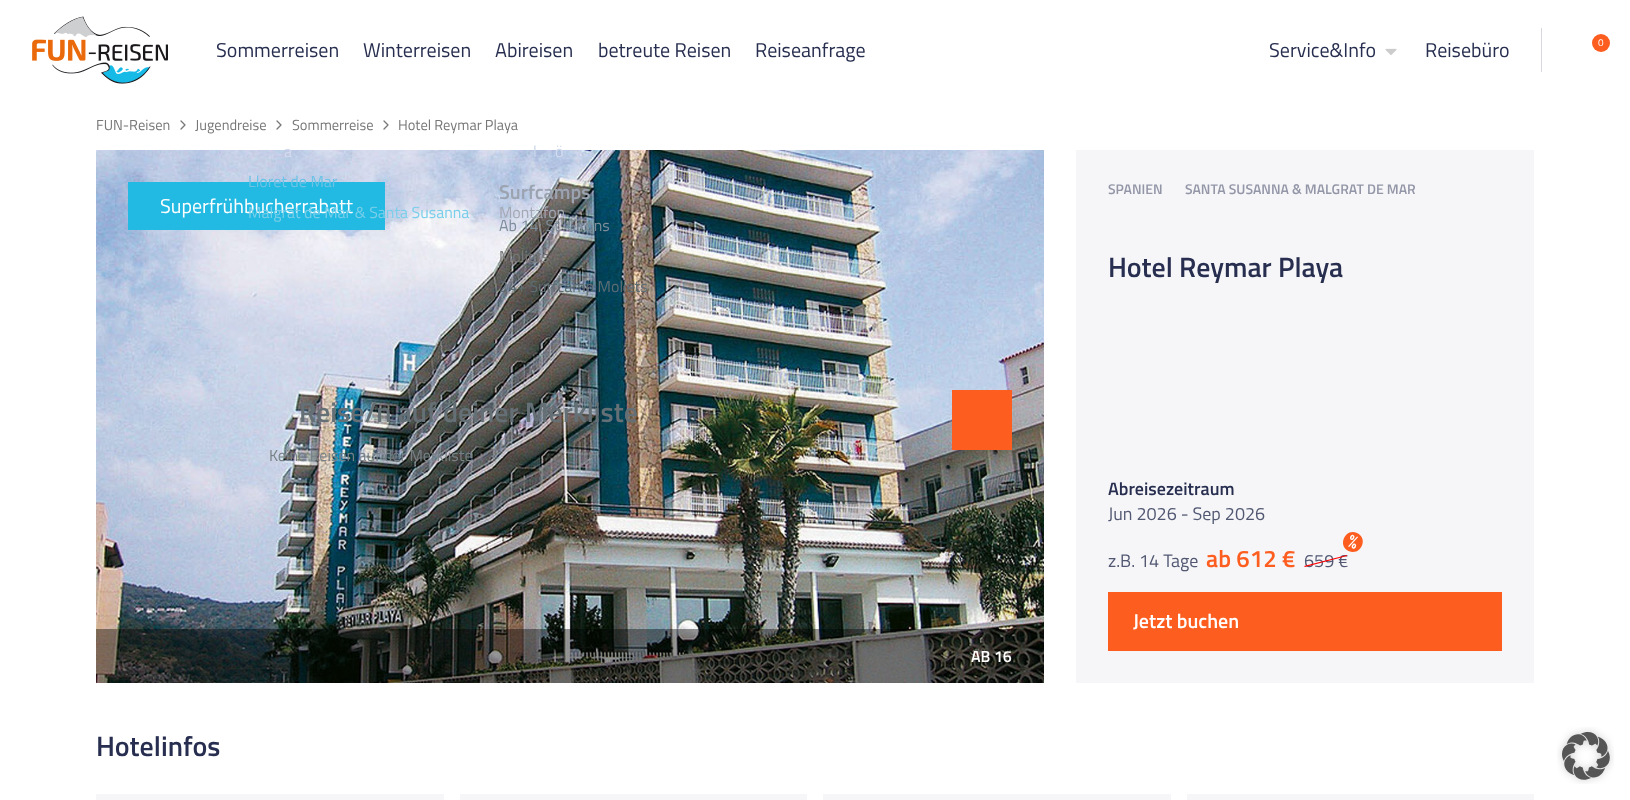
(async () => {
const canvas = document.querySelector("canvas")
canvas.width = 1630
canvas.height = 800
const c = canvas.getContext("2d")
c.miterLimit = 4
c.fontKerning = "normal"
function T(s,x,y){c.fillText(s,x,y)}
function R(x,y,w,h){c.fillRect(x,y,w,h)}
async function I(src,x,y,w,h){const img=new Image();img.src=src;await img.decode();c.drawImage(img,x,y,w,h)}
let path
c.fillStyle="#fff"
R(0,0,1630,800)
await I("1.png",32,16,136,68)
c.font="20px Titillium Web"
c.fillStyle="#272e4f"
T("Sommerreisen",216,57)
T("Winterreisen",363,57)
T("Abireisen",495,57)
T("betreute Reisen",598,57)
T("Reiseanfrage",755,57)
await I("3.png",96,150,948,533)
c.font="16px Titillium Web"
c.fillStyle="#d5dcee"
T("a",284,157)
c.fillStyle="#22bae3"
R(128,182,257,48)
c.fillStyle="#6cc3e5"
T("Lloret de Mar",248,187)
c.font="20px Titillium Web"
c.fillStyle="#fff"
T("Superfrühbucherrabatt",160,213)
c.font="16px Titillium Web"
c.fillStyle="#79cfea"
T("Malgrat de Mar & Santa Susanna",248,218)
c.fillStyle="#cbd6ea"
T("l",533,157)
c.font="600 20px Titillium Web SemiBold"
c.fillStyle="#9ca3b0"
T("Surfcamps",499,199)
c.font="16px Titillium Web"
c.fillStyle="#7d8d99"
T("Ab 14: St. Girons",499,231)
c.fillStyle="#777"
T("Moliets",499,262)
c.fillStyle="#5e6d73"
T("24+ Surfcamp Moliets",499,292)
c.fillStyle="#d5dcee"
T("ö",555,157)
c.fillStyle="#a4a8b3"
T("Montafon",499,218)
c.fillStyle="#d7d8df"
R(1541,28,1,44)
c.font="20px Titillium Web"
c.fillStyle="#272e4f"
T("Service&Info",1269,57)
await I("2.png",1385,48,12,7)
T("Reisebüro",1425,57)
c.fillStyle="#fd5d1f"
c.beginPath()
c.arc(1601,43,9,0,7)
c.fill()
c.font="10px Titillium Web"
c.fillStyle="#fff"
T("0",1598,46)
c.font="14.5px Titillium Web"
c.fillStyle="#777"
T("FUN-Reisen",96,130)
path = new Path2D("M181 121l4 4l-4 4")
c.strokeStyle="#777"
c.lineWidth=1.3
c.lineCap="round"
c.lineJoin="round"
c.stroke(path)
T("Jugendreise",195,130)
path = new Path2D("M277 121l4 4l-4 4")
c.stroke(path)
T("Sommerreise",292,130)
path = new Path2D("M384 121l4 4l-4 4")
c.stroke(path)
T("Hotel Reymar Playa",398,130)
c.fillStyle="#fd5d1f"
R(952,390,60,60)
c.fillStyle="#00000066"
R(96,629,948,54)
c.font="600 16px Titillium Web SemiBold"
c.fillStyle="#fff"
T("AB 16",971,662)
c.fillStyle="#f6f6f8"
R(1076,150,458,533)
c.font="600 14px Titillium Web SemiBold"
c.fillStyle="#9396a7"
T("SPANIEN",1108,194)
T("SANTA SUSANNA & MALGRAT DE MAR",1185,194)
c.font="600 28px Titillium Web SemiBold"
c.fillStyle="#272e4f"
T("Hotel Reymar Playa",1108,277)
c.font="600 18px Titillium Web SemiBold"
T("Abreisezeitraum",1108,495)
c.font="18px Titillium Web"
c.fillStyle="#525872"
T("Jun 2026 - Sep 2026",1108,520)
T("z.B. 14 Tage",1108,567)
c.fillStyle="#fd5d1f"
path = new Path2D("M1357 533c12 5.5 3.5 23.5-8.5 18c-11.5-5.5-3-23.5 8.5-18z")
c.fill(path)
c.font="600 18px Titillium Web SemiBold"
c.fillStyle="#fff"
c.save()
c.translate(1346,545)
c.rotate(25 * Math.PI / 180)
c.fillText("%",0,0)
c.restore()
c.font="600 24px Titillium Web SemiBold"
c.fillStyle="#fd5d1f"
T("ab 612 €",1206,567)
c.font="18px Titillium Web"
c.fillStyle="#525872"
T("659 €",1304,567)
c.fillStyle="#f00"
path = new Path2D("M1304 566l43-11v1l-42 11z")
c.fill(path)
c.fillStyle="#fd5d1f"
R(1108,592,394,59)
c.font="600 20px Titillium Web SemiBold"
c.fillStyle="#fff"
T("Jetzt buchen",1133,628)
c.font="600 28px Titillium Web SemiBold"
c.fillStyle="#272e4f"
T("Hotelinfos",96,756)
c.fillStyle="#f6f6f8"
R(96,794,348,6)
R(460,794,347,6)
R(823,794,348,6)
R(1187,794,347,6)
c.fillStyle="#647075"
T("Reise/n auf deiner Merkliste",299,422)
c.font="16px Titillium Web"
c.fillStyle="#768086"
T("Keine Reisen auf der Merkliste",269,461)
await I("4.png",1557,727,57,57)
})()
